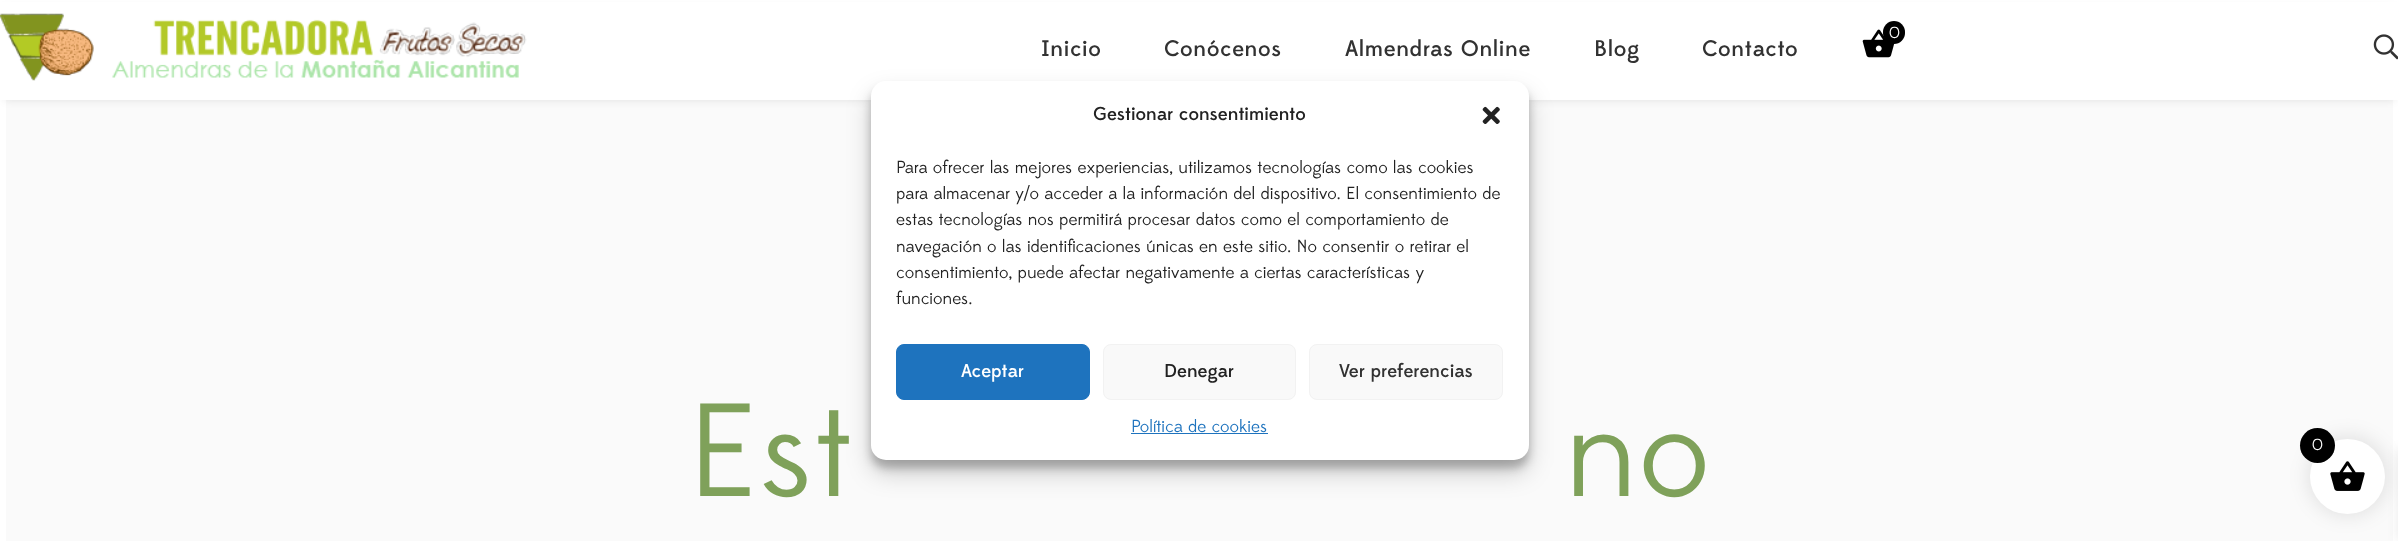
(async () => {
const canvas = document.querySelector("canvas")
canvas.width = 2398
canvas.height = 541
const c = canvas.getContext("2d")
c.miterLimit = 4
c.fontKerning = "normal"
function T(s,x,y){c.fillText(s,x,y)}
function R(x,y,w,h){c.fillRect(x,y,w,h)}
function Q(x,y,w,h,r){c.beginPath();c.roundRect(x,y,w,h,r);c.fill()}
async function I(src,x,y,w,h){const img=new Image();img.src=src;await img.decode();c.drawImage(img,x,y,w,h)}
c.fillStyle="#fff"
R(0,0,2398,541)
c.fillStyle="#fafafa"
R(6,100,2387,441)
c.fillStyle="#0000001a"
c.filter="blur(4.5px)"
c.beginPath()
c.rect(4,8,2391,92)
c.fill()
c.filter="none"
c.fillStyle="#fff"
R(0,2,2398,98)
await I("1.png",0,13,527,68)
await I("2.png",1862,29,33,29)
c.fillStyle="#000"
Q(1883,21,22,23,11)
c.font="16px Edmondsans"
c.fillStyle="#fff"
T("0",1889,38)
c.letterSpacing="0.6px"
c.font="500 22.5px Edmondsans"
c.fillStyle="#323232"
T("Inicio",1041,56)
T("Conócenos",1164,56)
T("Almendras Online",1345,56)
T("Blog",1594,56)
T("Contacto",1702,56)
await I("3.png",2373,34,25,26)
c.letterSpacing="1px"
c.font="132px Edmondsans"
c.fillStyle="#7fa15a"
T("Est",687,496)
T("no",1565,496)
c.fillStyle="#0000003b"
c.filter="blur(4px)"
c.beginPath()
c.roundRect(871,89,658,379,15)
c.fill()
c.filter="none"
c.fillStyle="#00000030"
c.filter="blur(12.5px)"
c.beginPath()
c.roundRect(871,94,658,379,15)
c.fill()
c.filter="none"
c.fillStyle="#fff"
Q(871,81,658,379,15)
c.letterSpacing="0px"
c.font="500 18.75px Edmondsans"
c.fillStyle="#222"
T("Gestionar consentimiento",1093,120)
await I("4.png",1482,106,18,18)
c.font="17.5px Edmondsans"
T("Para ofrecer las mejores experiencias, utilizamos tecnologías como las cookies",896,173)
T("para almacenar y/o acceder a la información del dispositivo. El consentimiento de",896,199)
T("estas tecnologías nos permitirá procesar datos como el comportamiento de",896,225)
T("navegación o las identificaciones únicas en este sitio. No consentir o retirar el",896,252)
T("consentimiento, puede afectar negativamente a ciertas características y",896,278)
T("funciones.",896,304)
c.fillStyle="#1e73be"
c.beginPath()
c.roundRect(896.5,344.5,193,55,7.5)
c.fill()
c.strokeStyle="#1e73be"
c.stroke()
c.font="500 18.75px Edmondsans"
c.fillStyle="#fff"
T("Aceptar",961,377)
c.fillStyle="#f9f9f9"
c.beginPath()
c.roundRect(1103.5,344.5,192,55,7.5)
c.fill()
c.strokeStyle="#f2f2f2"
c.stroke()
c.fillStyle="#222"
T("Denegar",1164,377)
c.fillStyle="#f9f9f9"
c.beginPath()
c.roundRect(1309.5,344.5,193,55,7.5)
c.fill()
c.stroke()
c.fillStyle="#323232"
T("Ver preferencias",1339,377)
c.font="17.5px Edmondsans"
c.fillStyle="#1e73be"
T("Política de cookies",1131,432)
R(1131,433,137,1)
c.fillStyle="#0000001a"
c.filter="blur(9.5px)"
c.beginPath()
c.roundRect(2308,436,80,80,40)
c.fill()
c.filter="none"
c.filter="blur(6px)"
c.beginPath()
c.rect(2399,449,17,91)
c.fill()
c.filter="none"
c.fillStyle="#fff"
c.beginPath()
c.arc(2347.5,476.5,37.5,0,7)
c.fill()
await I("5.png",2330,461,35,30)
c.fillStyle="#000"
c.beginPath()
c.arc(2317.5,445.5,17.5,0,7)
c.fill()
c.font="16px Edmondsans"
c.fillStyle="#fff"
T("0",2312,450)
})()
